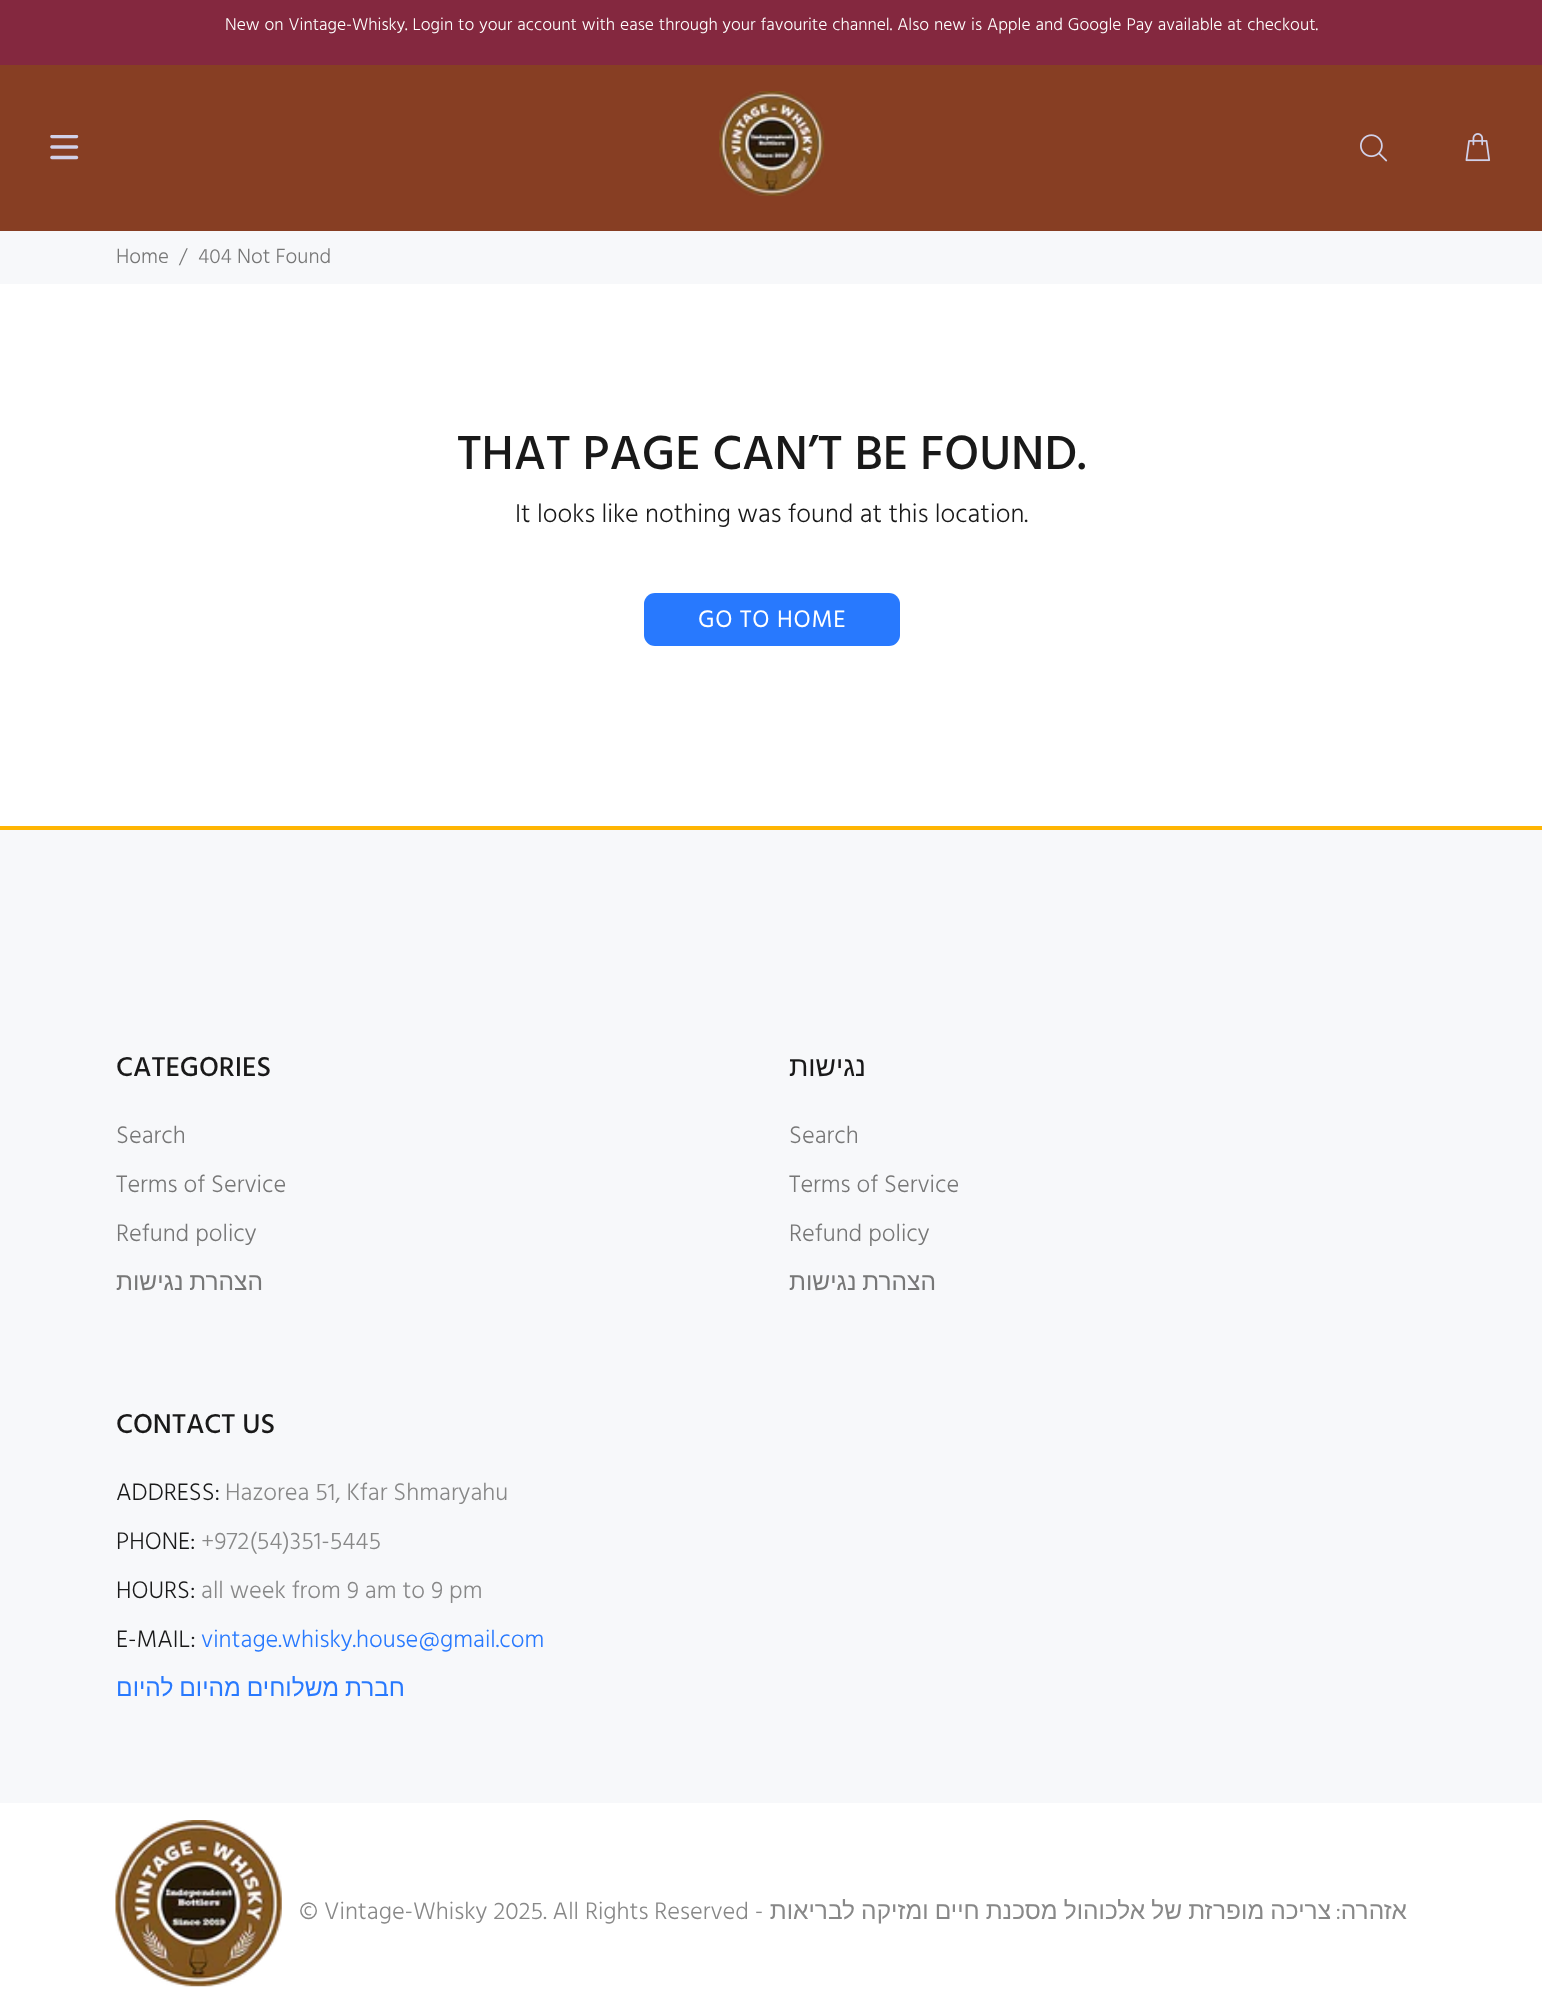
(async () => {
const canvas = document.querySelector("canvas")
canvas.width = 1542
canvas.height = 1996
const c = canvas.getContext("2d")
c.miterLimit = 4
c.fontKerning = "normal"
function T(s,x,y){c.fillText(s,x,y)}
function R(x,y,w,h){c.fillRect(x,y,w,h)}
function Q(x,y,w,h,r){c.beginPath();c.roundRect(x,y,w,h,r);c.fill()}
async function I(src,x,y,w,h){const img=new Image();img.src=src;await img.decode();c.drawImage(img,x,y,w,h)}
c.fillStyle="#fff"
R(0,0,1542,1996)
c.fillStyle="#873e23"
R(0,65,1542,166)
c.fillStyle="#84283f"
R(0,0,1542,65)
c.wordSpacing="0.7px"
c.font="300 17.5px Hind"
c.fillStyle="#fff"
T("New on Vintage-Whisky. Login to your account with ease through your favourite channel. Also new is Apple and Google Pay available at checkout.",225,30)
await I("1.png",50,135,29,25)
await I("2.png",719,91,106,105)
await I("3.png",1360,134,28,28)
await I("4.png",1465,133,26,29)
c.fillStyle="#f7f8fa"
R(0,231,1542,53)
c.wordSpacing="0px"
c.font="300 21px Hind"
c.fillStyle="#777"
T("Home",116,263)
T("/",179,263)
T("404 Not Found",198,263)
c.font="500 49px Hind"
c.fillStyle="#191919"
T("THAT PAGE CAN’T BE FOUND.",457,469)
c.font="300 26.25px Hind"
T("It looks like nothing was found at this location.",515,522)
c.fillStyle="#2879fe"
Q(644,593,256,53,11)
c.letterSpacing="0.75px"
c.font="24.5px Hind"
c.fillStyle="#fff"
T("GO TO HOME",698,627)
c.fillStyle="#f7f8fa"
R(0,830,1542,973)
c.fillStyle="#ffb503"
R(0,826,1542,4)
c.letterSpacing="0px"
c.font="500 28px Hind"
c.fillStyle="#191919"
T("CATEGORIES",116,1076)
c.font="300 24.5px Hind"
c.fillStyle="#777"
T("Search",116,1143)
T("Terms of Service",116,1192)
T("Refund policy",116,1241)
c.wordSpacing="-1px"
c.direction="rtl"
c.font="24.5px Liberation Sans"
T("הצהרת נגישות",263,1290)
c.wordSpacing="0px"
c.font="28px Liberation Sans"
c.fillStyle="#191919"
T("נגישות",866,1076)
c.direction="ltr"
c.font="300 24.5px Hind"
c.fillStyle="#777"
T("Search",789,1143)
T("Terms of Service",789,1192)
T("Refund policy",789,1241)
c.wordSpacing="-1px"
c.direction="rtl"
c.font="24.5px Liberation Sans"
T("הצהרת נגישות",936,1290)
c.wordSpacing="0px"
c.direction="ltr"
c.font="500 28px Hind"
c.fillStyle="#191919"
T("CONTACT US",116,1433)
c.font="300 24.5px Hind"
T("ADDRESS:",116,1500)
c.fillStyle="#888"
T("Hazorea 51, Kfar Shmaryahu",225,1500)
c.fillStyle="#191919"
T("PHONE:",116,1549)
c.fillStyle="#888"
T("+972(54)351-5445",201,1549)
c.fillStyle="#191919"
T("HOURS:",116,1598)
c.fillStyle="#888"
T("all week from 9 am to 9 pm",201,1598)
c.fillStyle="#191919"
T("E-MAIL:",116,1647)
c.fillStyle="#2879fe"
T("vintage.whisky.house@gmail.com",201,1647)
c.wordSpacing="-1px"
c.direction="rtl"
c.font="24.5px Liberation Sans"
T("חברת משלוחים מהיום להיום",405,1696)
await I("5.png",115,1820,167,167)
c.wordSpacing="0px"
c.direction="ltr"
c.font="300 24.5px Hind"
c.fillStyle="#888"
T("© Vintage-Whisky 2025. All Rights Reserved -",299,1919)
c.wordSpacing="-0.75px"
c.direction="rtl"
c.font="24.5px Liberation Sans"
T("צריכה מופרזת של אלכוהול מסכנת חיים ומזיקה לבריאות",1331,1919)
c.wordSpacing="0px"
c.font="300 24.5px Hind"
T(":",1341,1919)
c.font="24.5px Liberation Sans"
T("אזהרה",1407,1919)
})()
